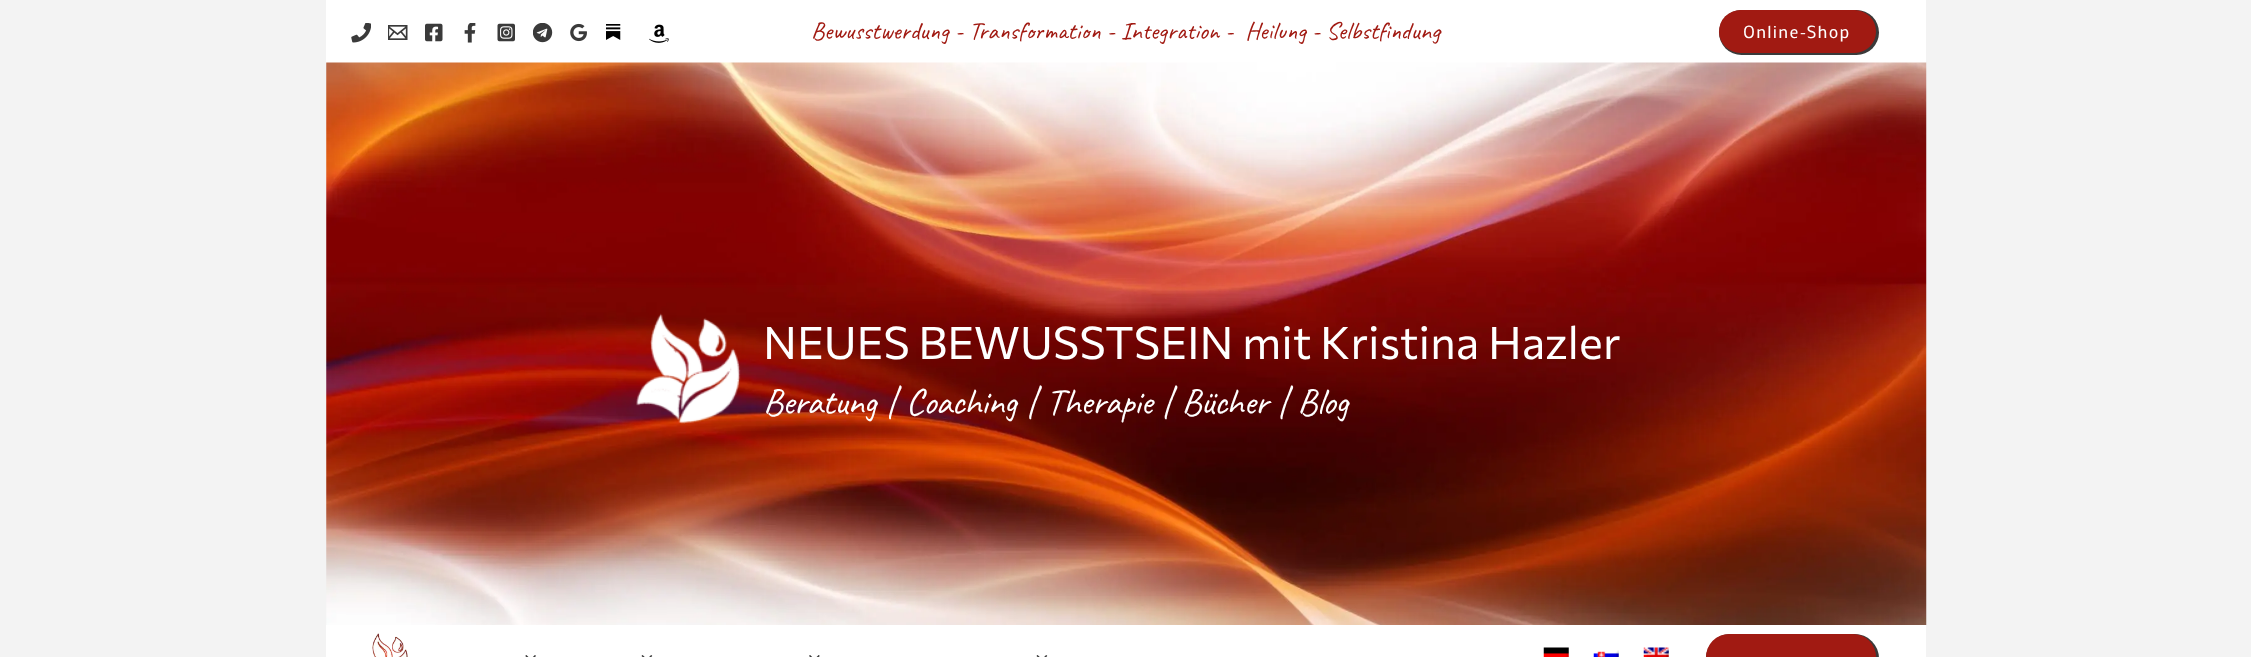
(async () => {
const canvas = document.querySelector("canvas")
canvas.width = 2251
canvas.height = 657
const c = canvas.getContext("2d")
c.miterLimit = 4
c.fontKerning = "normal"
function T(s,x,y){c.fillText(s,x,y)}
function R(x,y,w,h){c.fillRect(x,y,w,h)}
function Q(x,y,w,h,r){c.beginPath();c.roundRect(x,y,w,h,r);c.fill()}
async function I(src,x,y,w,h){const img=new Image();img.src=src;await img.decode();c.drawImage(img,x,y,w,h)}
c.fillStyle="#f3f3f3"
R(0,0,2251,657)
c.fillStyle="#fff"
R(326,0,1600,63)
await I("1.png",351,23,20,20)
await I("2.png",388,25,20,15)
await I("3.png",425,23,18,19)
await I("4.png",464,23,12,20)
await I("5.png",497,23,18,19)
await I("6.png",533,23,20,20)
await I("7.png",570,23,17,19)
await I("8.png",606,24,15,16)
await I("9.png",649,24,20,19)
c.font="25px Caveat"
c.fillStyle="#a11a12"
T("Bewusstwerdung - Transformation - Integration -  Heilung - Selbstfindung",811,39)
c.fillStyle="#3a3a3a"
c.filter="blur(0.5px)"
c.beginPath()
c.roundRect(1719,10,160,45,22.5)
c.fill()
c.filter="none"
c.fillStyle="#a11a12"
Q(1719,10,157,43,21.5)
c.letterSpacing="1.25px"
c.font="17.5px Mako"
c.fillStyle="#fff"
T("Online-Shop",1743,38)
await I("10.png",326,62,1601,563)
await I("11.png",636,313,105,111)
c.letterSpacing="0px"
c.font="100 45px Commissioner"
T("NEUES BEWUSSTSEIN mit Kristina Hazler",763,359)
c.letterSpacing="-0.6px"
c.wordSpacing="0.5px"
c.font="37.5px Caveat"
T("Beratung | Coaching | Therapie | Bücher | Blog",763,414)
R(326,625,1600,32)
await I("12.png",372,633,36,24)
await I("13.png",525,655,11,2)
await I("14.png",641,655,12,2)
await I("15.png",809,655,11,2)
await I("14.png",1036,655,12,2)
await I("16.png",1543,647,26,10)
await I("17.png",1593,650,26,7)
await I("18.png",1643,647,26,10)
c.fillStyle="#3a3a3a"
c.filter="blur(0.5px)"
c.beginPath()
c.roundRect(1706,634,173,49,24.5)
c.fill()
c.filter="none"
c.fillStyle="#a11a12"
Q(1706,634,170,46,23)
})()
